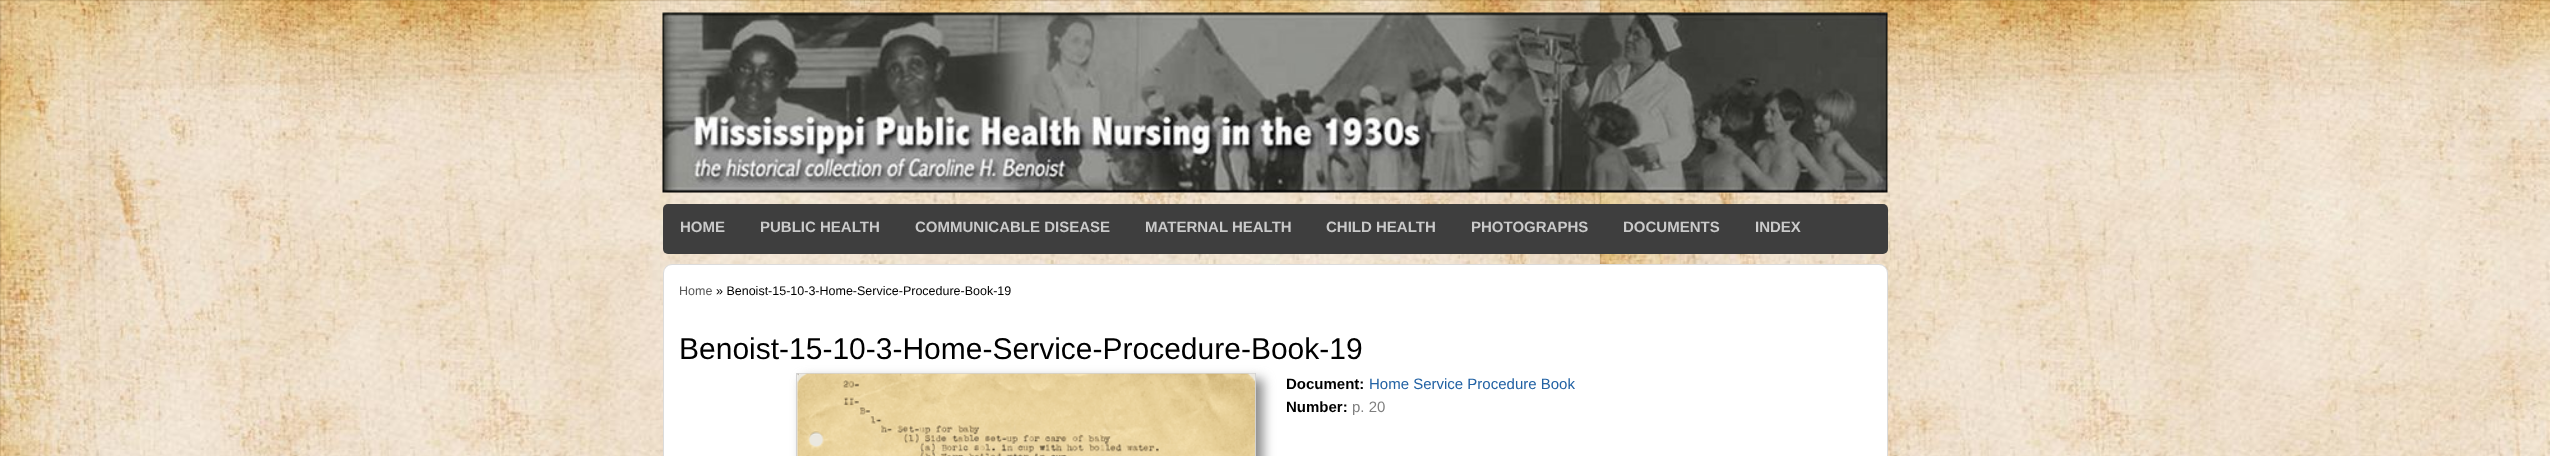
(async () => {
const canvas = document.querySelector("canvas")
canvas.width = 2550
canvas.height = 456
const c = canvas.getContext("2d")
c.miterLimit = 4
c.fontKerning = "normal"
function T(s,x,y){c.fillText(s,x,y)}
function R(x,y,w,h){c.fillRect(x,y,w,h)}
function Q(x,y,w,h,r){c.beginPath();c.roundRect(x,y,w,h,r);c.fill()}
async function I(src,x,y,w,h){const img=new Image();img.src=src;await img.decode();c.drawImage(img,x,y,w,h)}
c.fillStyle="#fff"
R(0,0,2550,456)
await I("1.png",0,0,2550,456)
await I("2.png",662,12,1226,181)
c.fillStyle="#3e3e3e"
Q(663,204,1225,50,5)
c.font="bold 15px Liberation Sans"
c.fillStyle="#cacaca"
T("HOME",680,232)
T("PUBLIC HEALTH",760,232)
T("COMMUNICABLE DISEASE",915,232)
T("MATERNAL HEALTH",1145,232)
T("CHILD HEALTH",1326,232)
T("PHOTOGRAPHS",1471,232)
T("DOCUMENTS",1623,232)
T("INDEX",1755,232)
c.fillStyle="#fff"
c.beginPath()
c.roundRect(663.5,264.5,1224,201,8.5)
c.fill()
c.strokeStyle="#dbdbdb"
c.stroke()
c.font="12.5px Liberation Sans"
c.fillStyle="#585858"
T("Home",679,295)
c.fillStyle="#000"
T("» Benoist-15-10-3-Home-Service-Procedure-Book-19",716,295)
c.font="30px Liberation Sans"
T("Benoist-15-10-3-Home-Service-Procedure-Book-19",679,359)
c.fillStyle="#888"
c.filter="blur(6px)"
c.beginPath()
c.rect(803,379,460,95)
c.fill()
c.filter="none"
c.strokeStyle="#d3d3d3"
c.strokeRect(796.5,373.5,459,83)
await I("3.png",797,373,458,83)
c.font="bold 15px Liberation Sans"
c.fillStyle="#000"
T("Document:",1286,389)
c.font="15px Liberation Sans"
c.fillStyle="#2262a4"
T("Home Service Procedure Book",1369,389)
c.font="bold 15px Liberation Sans"
c.fillStyle="#000"
T("Number:",1286,412)
c.font="15px Liberation Sans"
c.fillStyle="#7e7e7e"
T("p. 20",1352,412)
})()
